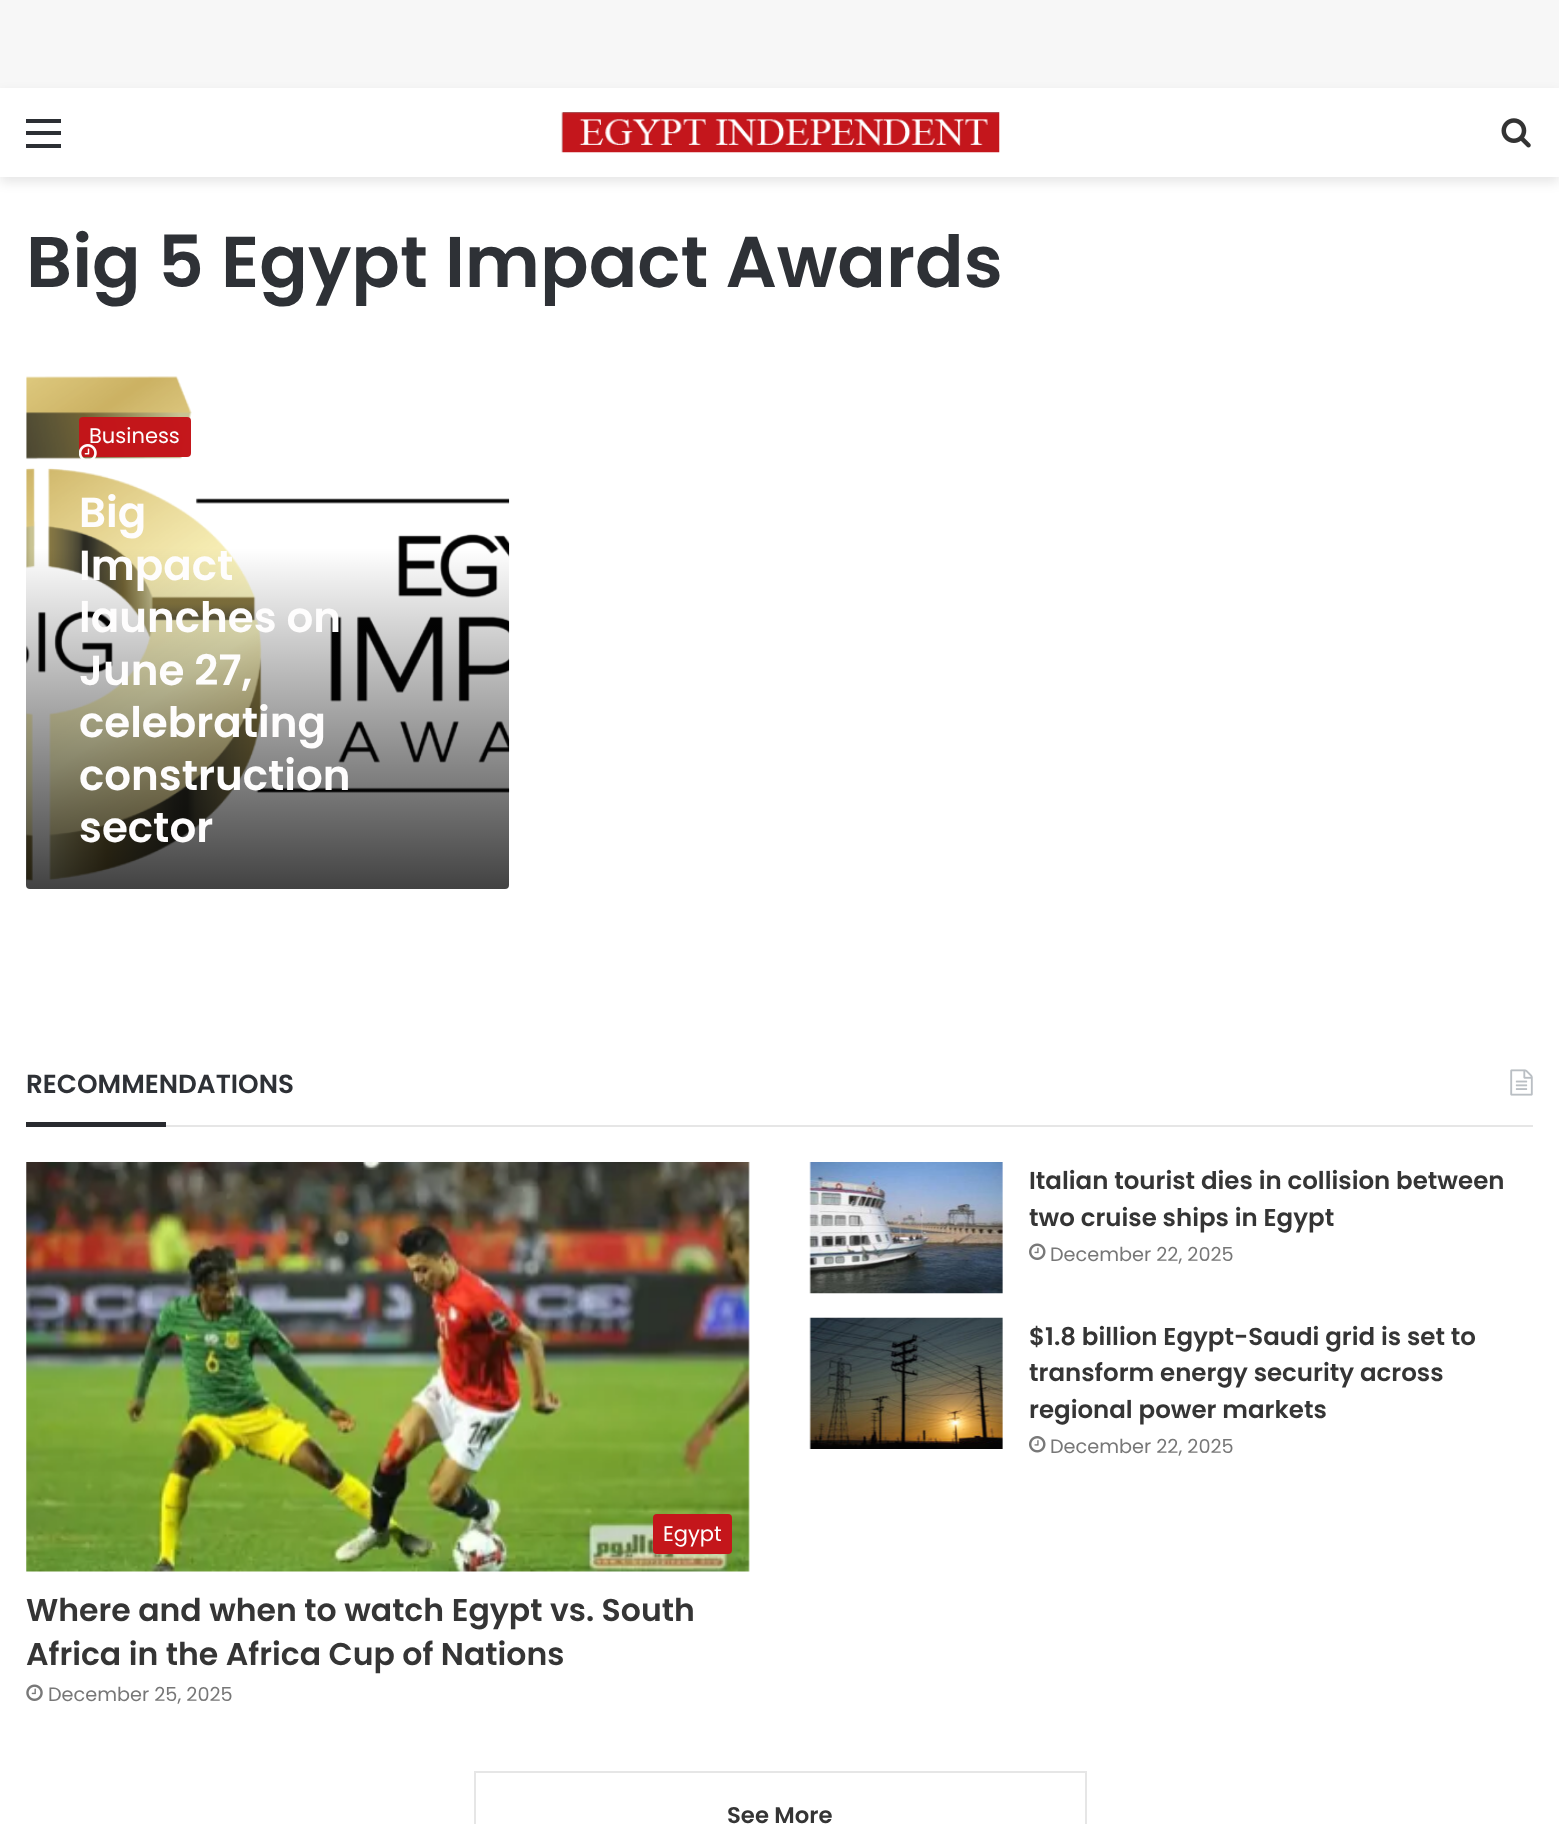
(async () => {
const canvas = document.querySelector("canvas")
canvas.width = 1559
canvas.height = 1824
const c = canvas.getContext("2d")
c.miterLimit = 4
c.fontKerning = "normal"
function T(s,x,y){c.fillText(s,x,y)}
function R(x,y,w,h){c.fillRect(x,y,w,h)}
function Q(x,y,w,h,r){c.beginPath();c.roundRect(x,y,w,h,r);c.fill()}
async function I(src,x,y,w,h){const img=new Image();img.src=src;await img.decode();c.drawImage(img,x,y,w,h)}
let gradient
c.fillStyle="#f7f7f7"
R(0,0,1559,1824)
c.fillStyle="#fff"
R(0,177,1559,1647)
c.fillStyle="#0000001a"
c.filter="blur(6px)"
c.beginPath()
c.rect(0,93,1559,89)
c.fill()
c.filter="none"
c.fillStyle="#fff"
R(0,88,1559,89)
c.fillStyle="#2c2f34"
R(26,131,35,4)
R(26,119,35,4)
R(26,144,35,4)
await I("1.png",561,112,439,41)
await I("2.png",1501,118,30,30)
c.font="600 71.75px Poppins"
c.fillStyle="#2e3136"
T("Big 5 Egypt Impact Awards",26,287)
await I("3.png",26,376,484,506)
c.fillStyle="#c31419fc"
Q(79,417,112,40,4)
c.font="21px Poppins"
c.fillStyle="#fefdfd"
T("Business",89,443)
await I("4.png",79,444,18,15)
c.font="600 42px Poppins"
T("Big",79,527)
gradient = c.createLinearGradient(268,548,268,889)
gradient.addColorStop(0,"#00000000")
gradient.addColorStop(1,"#000000bd")
c.fillStyle = gradient
c.beginPath()
c.roundRect(26,548,483,341,[0,0,4,4])
c.fill()
c.fillStyle="#fefdfd"
T("Impact",79,580)
T("launches on",79,632)
T("June 27,",79,685)
T("celebrating",79,737)
T("construction",79,790)
T("sector",79,842)
c.fillStyle="#e6e6e6"
R(166,1125,1367,2)
c.font="600 26.25px Poppins"
c.fillStyle="#2e3136"
T("RECOMMENDATIONS",26,1093)
await I("5.png",1510,1069,23,27)
c.fillStyle="#292b2f"
R(26,1122,140,5)
await I("6.png",809,1162,194,132)
c.font="600 24.5px Poppins"
c.fillStyle="#353535"
T("Italian tourist dies in collision between",1029,1189)
T("two cruise ships in Egypt",1029,1226)
await I("7.png",1029,1243,17,17)
c.font="19.25px Poppins"
c.fillStyle="#777"
T("December 22, 2025",1050,1261)
await I("8.png",809,1317,194,132)
c.font="600 24.5px Poppins"
c.fillStyle="#353535"
T("$1.8 billion Egypt-Saudi grid is set to",1029,1345)
T("transform energy security across",1029,1381)
T("regional power markets",1029,1418)
await I("9.png",1029,1436,17,17)
c.font="19.25px Poppins"
c.fillStyle="#777"
T("December 22, 2025",1050,1453)
await I("10.png",26,1162,724,410)
c.fillStyle="#c4161b"
Q(653,1514,79,40,4)
c.font="21px Poppins"
c.fillStyle="#fefdfd"
T("Egypt",663,1541)
c.font="600 31.5px Poppins"
c.fillStyle="#353535"
T("Where and when to watch Egypt vs. South",26,1621)
T("Africa in the Africa Cup of Nations",26,1665)
await I("11.png",26,1684,17,17)
c.font="19.25px Poppins"
c.fillStyle="#777"
T("December 25, 2025",48,1701)
c.strokeStyle="#e6e6e6"
c.lineWidth=2
c.strokeRect(475,1772,611,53)
c.font="600 22.75px Poppins"
c.fillStyle="#353535"
T("See More",727,1823)
})()
